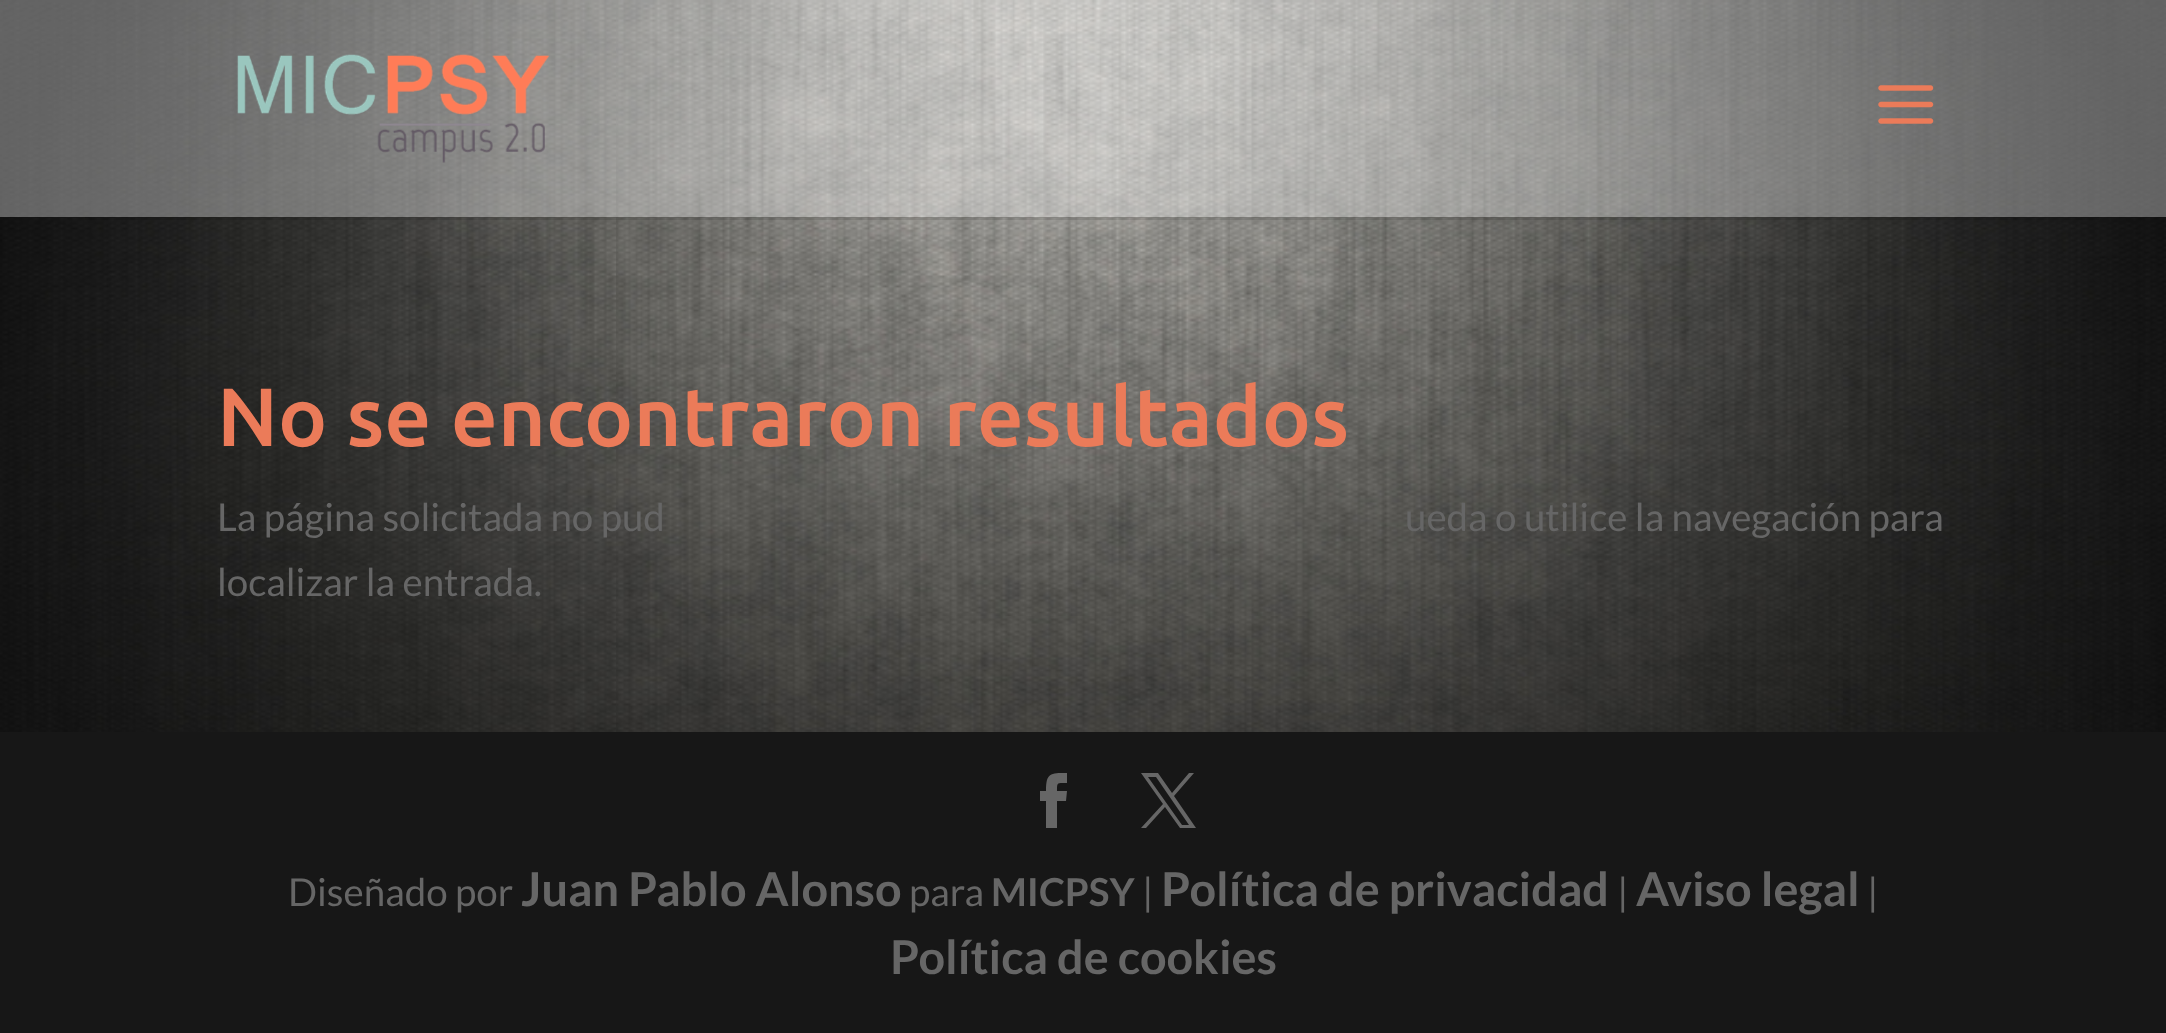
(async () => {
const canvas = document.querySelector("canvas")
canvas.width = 2166
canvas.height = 1033
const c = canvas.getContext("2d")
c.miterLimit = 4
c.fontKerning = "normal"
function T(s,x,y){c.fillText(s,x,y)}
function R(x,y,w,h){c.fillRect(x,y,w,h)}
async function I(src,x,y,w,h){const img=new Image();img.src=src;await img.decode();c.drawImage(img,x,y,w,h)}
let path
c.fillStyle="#fff"
R(0,0,2166,1033)
await I("1.png",0,0,2166,732)
c.fillStyle="#0000001a"
R(85,217,2014,3)
c.fillStyle="#ffffff59"
R(0,0,2166,217)
await I("2.png",237,54,313,109)
await I("3.png",1878,85,56,39)
c.font="500 82.5px Ubuntu"
c.fillStyle="#eb7b59"
T("No se encontraron resultados",217,446)
c.font="38.5px Lato"
c.fillStyle="#666"
T("La página solicitada no pud",217,531)
T("ueda o utilice la navegación para",1405,531)
T("localizar la entrada.",217,596)
c.fillStyle="#171717"
R(0,732,2166,301)
c.fillStyle="#666"
path = new Path2D("M1046 828h11v-27h9l1-10h-10c0-9 0-8 10-8v-10c-17 0-21 0-21 18h-6v10h6z")
c.fill(path)
path = new Path2D("M1141 773l22 31l-22 24h5l19-21l15 21h16l-22-32l20-23h-5l-17 20l-14-20zm7 4h8l33 48h-7z")
c.fill(path)
T("Diseñado por",288,906)
c.font="bold 46.75px Lato"
T("Juan Pablo Alonso",521,906)
c.font="38.5px Lato"
T("para",909,906)
c.font="bold 38.5px Lato"
T("MICPSY",991,906)
c.font="38.5px Lato"
T("|",1142,906)
c.font="bold 46.75px Lato"
T("Política de privacidad",1161,906)
c.font="38.5px Lato"
T("|",1617,906)
c.font="bold 46.75px Lato"
T("Aviso legal",1636,906)
c.font="38.5px Lato"
T("|",1867,906)
c.font="bold 46.75px Lato"
T("Política de cookies",890,974)
})()
